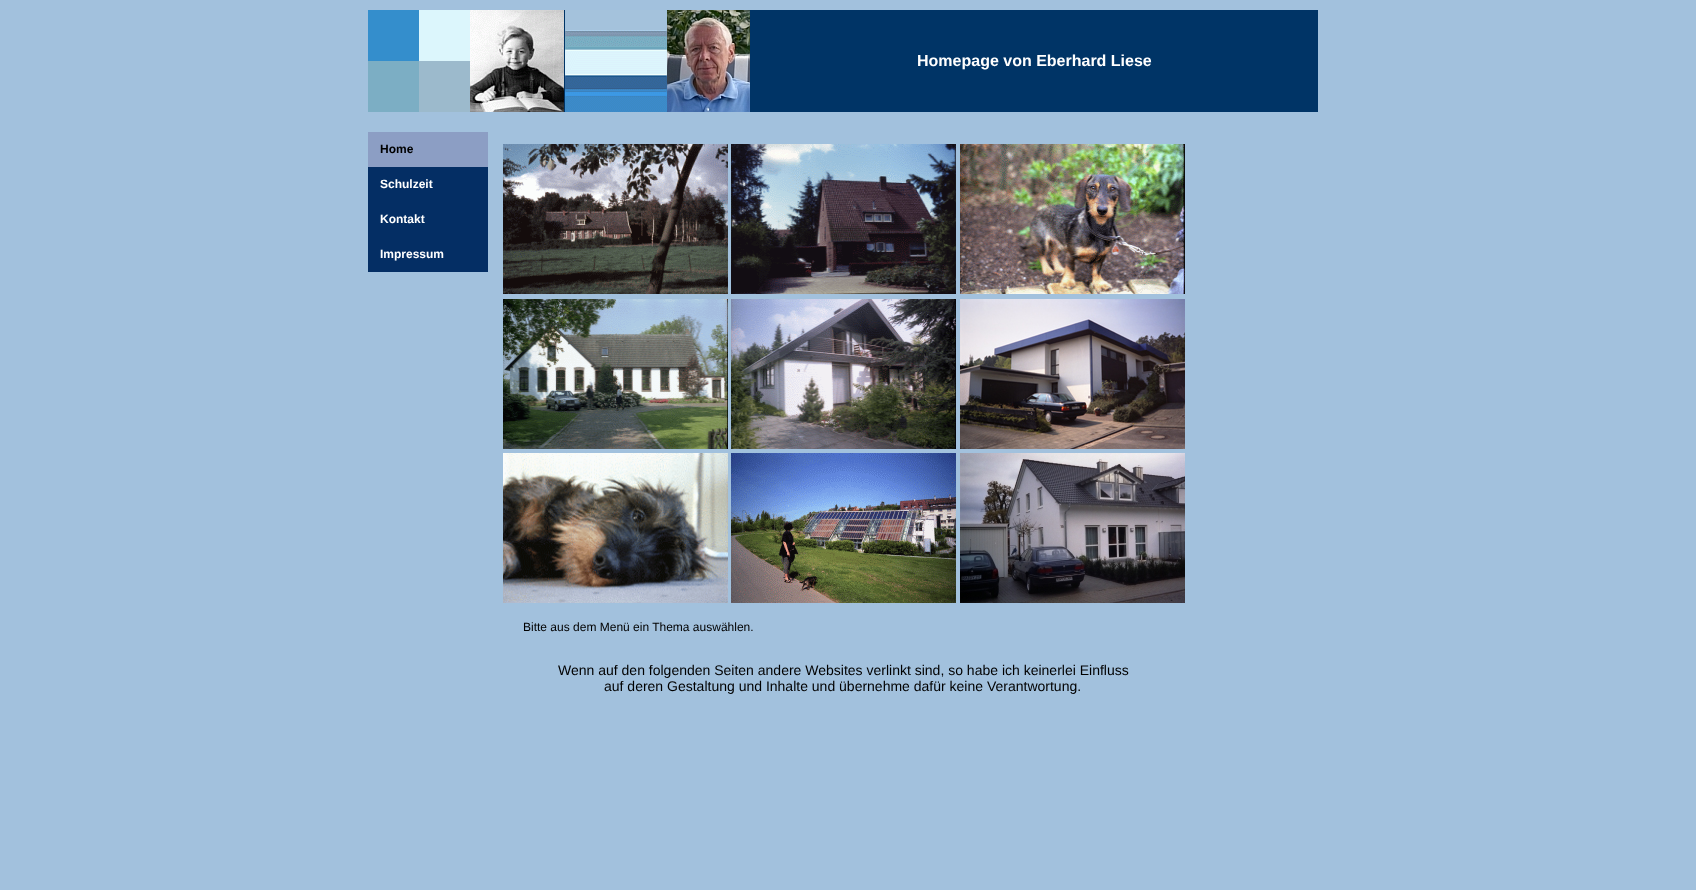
(async () => {
const canvas = document.querySelector("canvas")
canvas.width = 1696
canvas.height = 890
const c = canvas.getContext("2d")
c.miterLimit = 4
c.fontKerning = "normal"
function T(s,x,y){c.fillText(s,x,y)}
function R(x,y,w,h){c.fillRect(x,y,w,h)}
async function I(src,x,y,w,h){const img=new Image();img.src=src;await img.decode();c.drawImage(img,x,y,w,h)}
c.fillStyle="#a2c1dd"
R(0,0,1696,890)
c.fillStyle="#003466"
R(564,10,754,102)
await I("1.png",368,10,102,102)
await I("2.png",470,10,94,102)
await I("3.png",565,10,102,102)
await I("4.png",667,10,83,102)
c.font="bold 16px Liberation Sans"
c.fillStyle="#fff"
T("Homepage von Eberhard Liese",917,66)
c.fillStyle="#8c9ec4"
R(368,132,120,35)
c.font="bold 12px Liberation Sans"
c.fillStyle="#000"
T("Home",380,153)
c.fillStyle="#042e64"
R(368,167,120,105)
c.fillStyle="#fff"
T("Schulzeit",380,188)
T("Kontakt",380,223)
T("Impressum",380,258)
await I("5.png",503,144,225,150)
await I("6.png",731,144,225,150)
await I("7.png",960,144,225,150)
await I("8.png",503,299,225,150)
await I("9.png",731,299,225,150)
await I("10.png",960,299,225,150)
await I("11.png",503,453,225,150)
await I("12.png",731,453,225,150)
await I("13.png",960,453,225,150)
c.font="12px Liberation Sans"
c.fillStyle="#000"
T("Bitte aus dem Menü ein Thema auswählen.",523,631)
c.font="14px Liberation Sans"
T("Wenn auf den folgenden Seiten andere Websites verlinkt sind, so habe ich keinerlei Einfluss",558,675)
T("auf deren Gestaltung und Inhalte und übernehme dafür keine Verantwortung.",604,691)
})()
